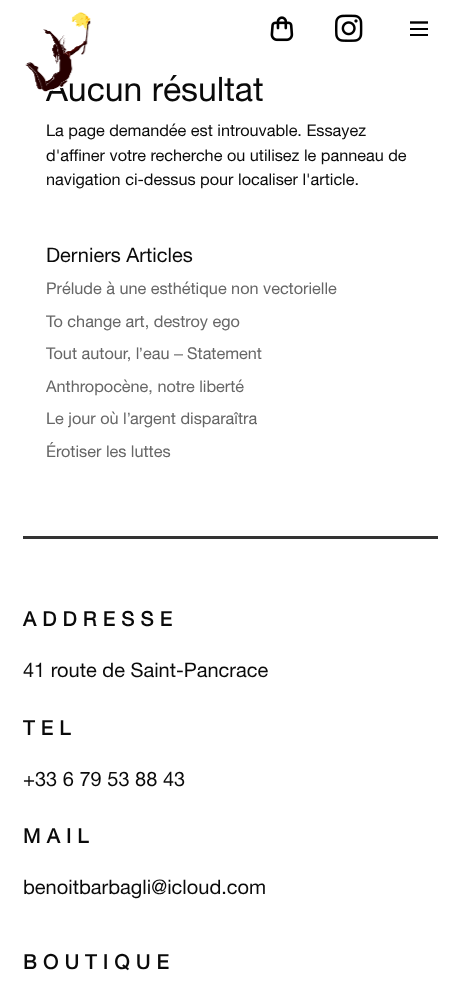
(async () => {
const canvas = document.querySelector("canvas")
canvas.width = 460
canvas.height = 988
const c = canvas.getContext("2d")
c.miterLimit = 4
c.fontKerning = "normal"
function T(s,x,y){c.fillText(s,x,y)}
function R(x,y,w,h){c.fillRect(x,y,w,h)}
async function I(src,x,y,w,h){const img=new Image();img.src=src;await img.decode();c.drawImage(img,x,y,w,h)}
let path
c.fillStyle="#fff"
R(0,0,460,988)
c.font="33.75px Helvetica Neue"
c.fillStyle="#0a0a0a"
T("Aucun résultat",46,101)
await I("1.png",25,12,66,80)
await I("2.png",270,16,24,26)
await I("3.png",335,14,28,28)
path = new Path2D("M410 22.5h18")
c.strokeStyle="#000"
c.lineWidth=2.4
c.stroke(path)
c.fillStyle="#000"
R(410,28,18,2)
R(410,34,18,2)
c.font="16.25px Helvetica Neue"
c.fillStyle="#0a0a0a"
T("La page demandée est introuvable. Essayez",46,136)
T("d'affiner votre recherche ou utilisez le panneau de",46,161)
T("navigation ci-dessus pour localiser l'article.",46,185)
c.font="20px Helvetica Neue"
T("Derniers Articles",46,262)
c.font="16.25px Helvetica Neue"
c.fillStyle="#666"
T("Prélude à une esthétique non vectorielle",46,294)
T("To change art, destroy ego",46,327)
T("Tout autour, l",46,359)
c.font="16.25px Liberation Sans"
T("’",139,359)
c.font="16.25px Helvetica Neue"
T("eau",143,359)
c.font="16.25px Liberation Sans"
T("–",174,359)
c.font="16.25px Helvetica Neue"
T("Statement",187,359)
T("Anthropocène, notre liberté",46,392)
T("Le jour où l",46,424)
c.font="16.25px Liberation Sans"
T("’",127,424)
c.font="16.25px Helvetica Neue"
T("argent disparaîtra",130,424)
T("Érotiser les luttes",46,457)
c.fillStyle="#333"
R(23,536,415,3)
c.letterSpacing="6.25px"
c.font="bold 20px Helvetica Neue"
c.fillStyle="#0a0a0a"
T("ADDRESSE",23,626)
c.letterSpacing="0px"
c.font="20px Helvetica Neue"
T("41 route de Saint-Pancrace",23,677)
c.letterSpacing="6.25px"
c.font="bold 20px Helvetica Neue"
T("TEL",23,735)
c.letterSpacing="0px"
c.font="20px Helvetica Neue"
T("+33 6 79 53 88 43",23,786)
c.letterSpacing="6.25px"
c.font="bold 20px Helvetica Neue"
T("MAIL",23,843)
c.letterSpacing="0px"
c.font="20px Helvetica Neue"
T("benoitbarbagli@icloud.com",23,894)
c.letterSpacing="6.25px"
c.font="bold 20px Helvetica Neue"
T("BOUTIQUE",23,969)
})()
